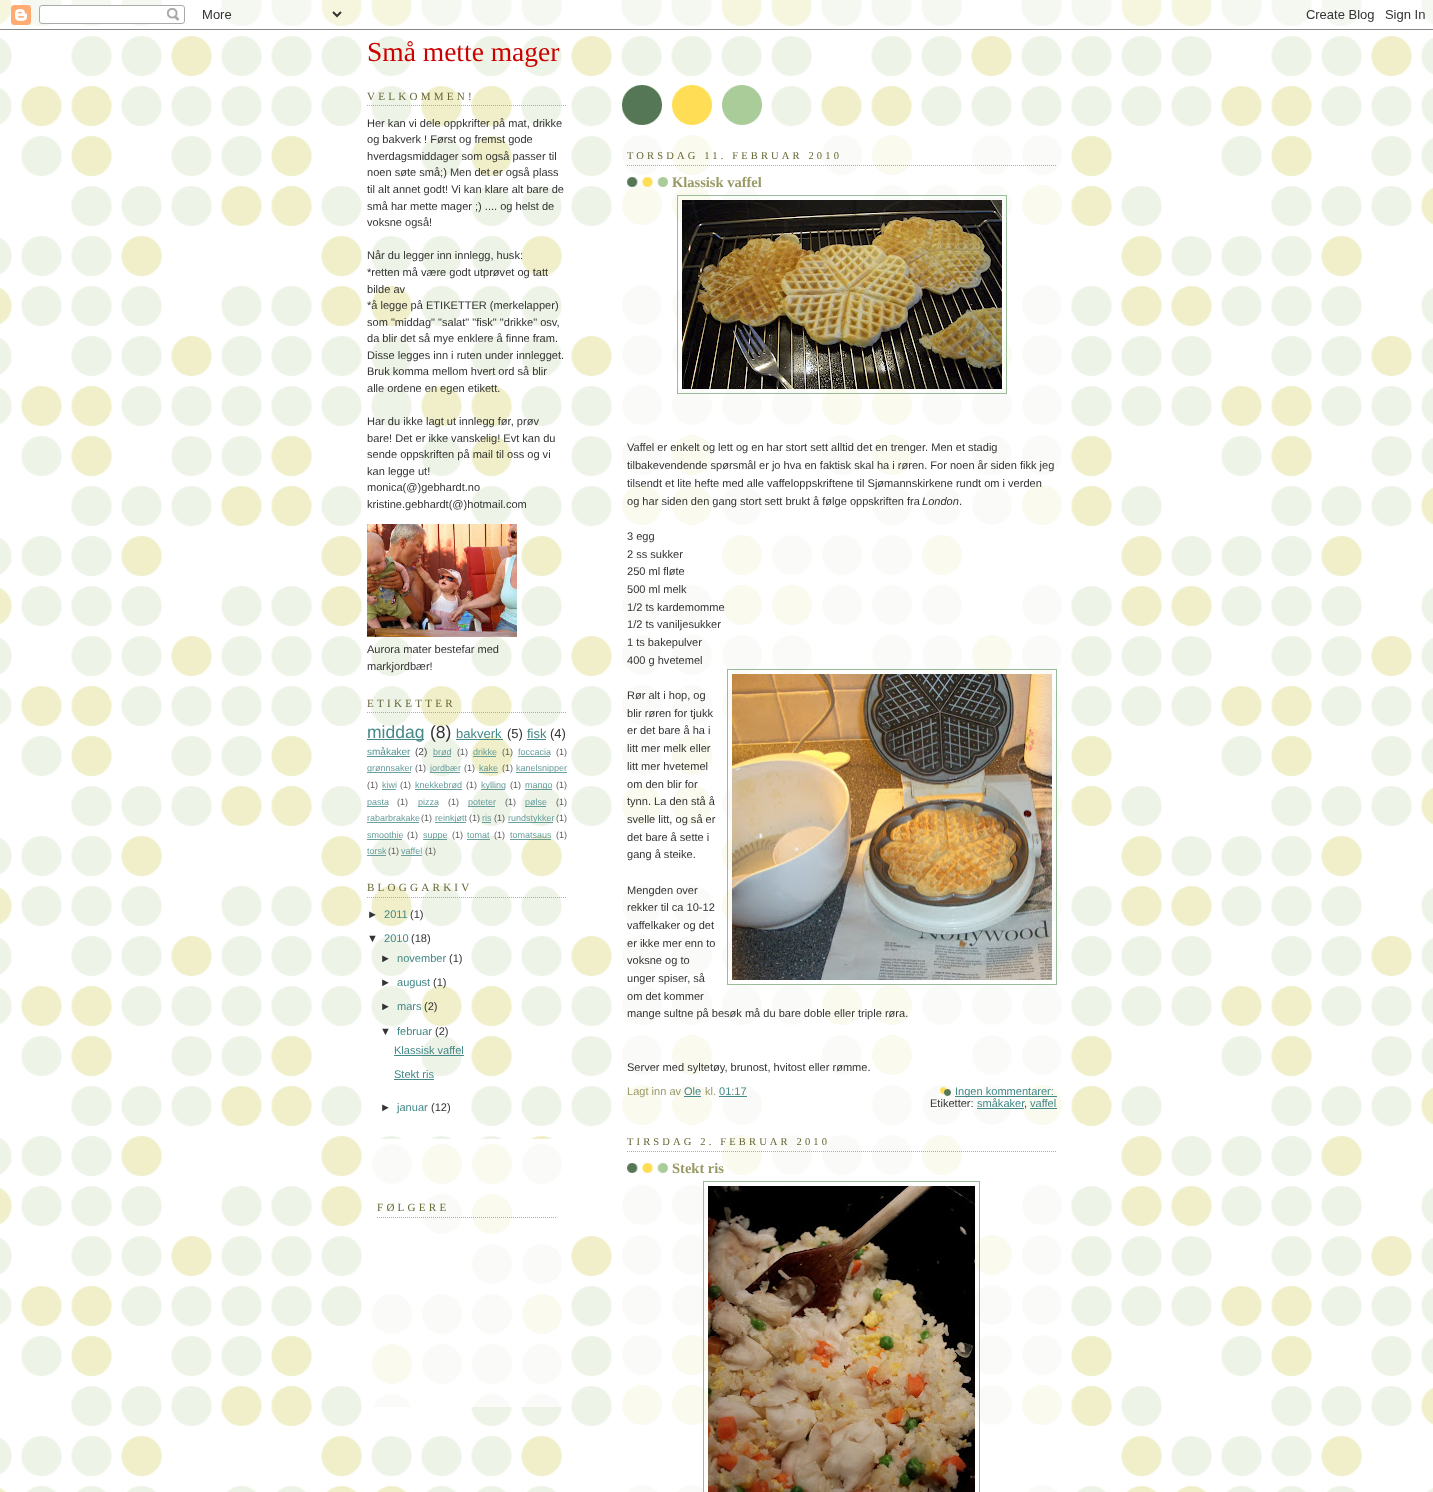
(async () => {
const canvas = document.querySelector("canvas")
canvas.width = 1433
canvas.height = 1492
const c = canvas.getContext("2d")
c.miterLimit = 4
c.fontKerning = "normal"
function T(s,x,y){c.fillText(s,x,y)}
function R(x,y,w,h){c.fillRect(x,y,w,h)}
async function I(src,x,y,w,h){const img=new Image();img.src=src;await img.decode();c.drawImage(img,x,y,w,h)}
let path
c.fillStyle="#fff"
R(0,0,1433,1492)
await I("1.png",0,0,1433,1492)
await I("2.png",0,0,1433,30)
await I("3.png",621,85,141,41)
c.font="27.5px Liberation Serif"
c.fillStyle="#c00"
T("Små mette mager",367,61)
path = new Path2D("M367 105.5h200")
c.strokeStyle="#9b9"
c.setLineDash([1,1])
c.stroke(path)
c.letterSpacing="3.25px"
c.font="11.05px Liberation Serif"
c.fillStyle="#663"
T("VELKOMMEN!",367,100)
c.letterSpacing="0px"
c.font="11.05px Liberation Sans"
c.fillStyle="#333"
T("Her kan vi dele oppkrifter på mat, drikke",367,127)
T("og bakverk ! Først og fremst gode",367,143)
T("hverdagsmiddager som også passer til",367,160)
T("noen søte små;) Men det er også plass",367,176)
T("til alt annet godt! Vi kan klare alt bare de",367,193)
T("små har mette mager ;) .... og helst de",367,210)
T("voksne også!",367,226)
T("Når du legger inn innlegg, husk:",367,259)
T("*retten må være godt utprøvet og tatt",367,276)
T("bilde av",367,293)
T("*å legge på ETIKETTER (merkelapper)",367,309)
T("som \"middag\" \"salat\" \"fisk\" \"drikke\" osv,",367,326)
T("da blir det så mye enklere å finne fram.",367,342)
T("Disse legges inn i ruten under innlegget.",367,359)
T("Bruk komma mellom hvert ord så blir",367,375)
T("alle ordene en egen etikett.",367,392)
T("Har du ikke lagt ut innlegg før, prøv",367,425)
T("bare! Det er ikke vanskelig! Evt kan du",367,442)
T("sende oppskriften på mail til oss og vi",367,458)
T("kan legge ut!",367,475)
T("monica(@)gebhardt.no",367,491)
T("kristine.gebhardt(@)hotmail.com",367,508)
await I("4.png",367,524,150,113)
T("Aurora mater bestefar med",367,653)
T("markjordbær!",367,670)
path = new Path2D("M367 712.5h200")
c.stroke(path)
c.letterSpacing="3.25px"
c.font="11.05px Liberation Serif"
c.fillStyle="#663"
T("ETIKETTER",367,707)
c.fillStyle="#488"
R(367,739,57,1)
c.letterSpacing="0px"
c.font="17.5px Liberation Sans"
T("middag",367,738)
c.fillStyle="#333"
T("(8)",430,738)
c.font="13px Liberation Sans"
c.fillStyle="#488"
T("bakverk",456,738)
R(456,739,47,1)
c.fillStyle="#333"
T("(5)",507,738)
c.fillStyle="#488"
T("fisk",527,738)
R(527,739,19,1)
c.fillStyle="#333"
T("(4)",550,738)
c.font="10px Liberation Sans"
c.fillStyle="#579494"
T("småkaker",367,755)
R(367,756,43,1)
c.fillStyle="#474746"
T("(2)",415,755)
c.font="9px Liberation Sans"
c.fillStyle="#669d9b"
T("brød",433,755)
R(433,756,18,1)
c.fillStyle="#5a5b5a"
T("(1)",457,755)
c.fillStyle="#669d95"
T("drikke",473,755)
R(473,756,23,1)
c.fillStyle="#595953"
T("(1)",502,755)
c.fillStyle="#669d9b"
T("foccacia",518,755)
c.fillStyle="#69a0a0"
R(518,756,32,1)
c.fillStyle="#5a5b5a"
T("(1)",556,755)
c.fillStyle="#69a0a0"
R(367,772,44,1)
c.fillStyle="#669d9b"
T("grønnsaker",367,771)
c.fillStyle="#5a5b5a"
T("(1)",415,771)
c.fillStyle="#448888cc"
R(430,772,30,1)
c.fillStyle="#669d9b"
T("jordbær",430,771)
c.fillStyle="#5a5b5a"
T("(1)",464,771)
c.fillStyle="#669d95"
T("kake",479,771)
c.fillStyle="#448888cc"
R(479,772,19,1)
c.fillStyle="#5a5b5a"
T("(1)",502,771)
c.fillStyle="#69a0a0"
R(516,772,51,1)
c.fillStyle="#669d9b"
T("kanelsnipper",516,771)
c.fillStyle="#5a5b5a"
T("(1)",367,788)
c.fillStyle="#669d9b"
T("kiwi",382,788)
c.fillStyle="#69a0a0"
R(382,789,14,1)
c.fillStyle="#5a5b5a"
T("(1)",400,788)
c.fillStyle="#669d9b"
T("knekkebrød",415,788)
c.fillStyle="#69a0a0"
R(415,789,47,1)
c.fillStyle="#5a5b5a"
T("(1)",466,788)
c.fillStyle="#448888cc"
R(481,789,24,1)
c.fillStyle="#669d9b"
T("kylling",481,788)
c.fillStyle="#5a5b5a"
T("(1)",510,788)
c.fillStyle="#448888cc"
R(525,789,27,1)
c.fillStyle="#669d9b"
T("mango",525,788)
c.fillStyle="#5a5b5a"
T("(1)",556,788)
c.fillStyle="#69a0a0"
R(367,806,21,1)
c.fillStyle="#669d9b"
T("pasta",367,805)
c.fillStyle="#5a5b5a"
T("(1)",397,805)
c.fillStyle="#69a0a0"
R(418,806,20,1)
c.fillStyle="#669d9b"
T("pizza",418,805)
c.fillStyle="#5a5b5a"
T("(1)",448,805)
c.fillStyle="#448888cc"
R(468,806,27,1)
c.fillStyle="#669d9b"
T("poteter",468,805)
c.fillStyle="#5a5b5a"
T("(1)",505,805)
c.fillStyle="#669d9b"
R(525,806,21,1)
T("pølse",525,805)
c.fillStyle="#5a5b5a"
T("(1)",556,805)
c.fillStyle="#669d9b"
T("rabarbrakake",367,821)
c.fillStyle="#69a0a0"
R(367,822,52,1)
c.fillStyle="#5a5b5a"
T("(1)",421,821)
c.fillStyle="#69a0a0"
R(435,822,31,1)
c.fillStyle="#669d9b"
T("reinkjøtt",435,821)
c.fillStyle="#5a5b5a"
T("(1)",469,821)
c.fillStyle="#669d9b"
T("ris",482,821)
R(482,822,9,1)
c.fillStyle="#5a5b5a"
T("(1)",494,821)
c.fillStyle="#448888cc"
R(508,822,45,1)
c.fillStyle="#669d9b"
T("rundstykker",508,821)
c.fillStyle="#5a5b5a"
T("(1)",556,821)
c.fillStyle="#669d9b"
T("smoothie",367,838)
c.fillStyle="#448888cc"
R(367,839,35,1)
c.fillStyle="#5a5b5a"
T("(1)",407,838)
c.fillStyle="#448888cc"
R(423,839,24,1)
c.fillStyle="#669d9b"
T("suppe",423,838)
c.fillStyle="#5a5b5a"
T("(1)",452,838)
c.fillStyle="#669d9b"
T("tomat",467,838)
c.fillStyle="#448888cc"
R(467,839,23,1)
c.fillStyle="#5a5b5a"
T("(1)",494,838)
c.fillStyle="#669d9b"
T("tomatsaus",510,838)
c.fillStyle="#448888cc"
R(510,839,41,1)
c.fillStyle="#5a5b5a"
T("(1)",556,838)
c.fillStyle="#669d9b"
T("torsk",367,854)
c.fillStyle="#448888cc"
R(367,855,19,1)
c.fillStyle="#5a5b5a"
T("(1)",388,854)
c.fillStyle="#669d9b"
T("vaffel",401,854)
c.fillStyle="#448888cc"
R(401,855,21,1)
c.fillStyle="#5a5b5a"
T("(1)",425,854)
path = new Path2D("M367 897.5h200")
c.stroke(path)
c.letterSpacing="3.25px"
c.font="11.05px Liberation Serif"
c.fillStyle="#663"
T("BLOGGARKIV",367,891)
c.letterSpacing="0px"
c.font="11.05px Liberation Sans"
c.fillStyle="#333"
T("►",367,918)
c.fillStyle="#488"
T("2011",384,918)
c.fillStyle="#333"
T("(1)",410,918)
T("▼",367,942)
c.fillStyle="#488"
T("2010",384,942)
c.fillStyle="#333"
T("(18)",411,942)
T("►",380,962)
c.fillStyle="#488"
T("november",397,962)
c.fillStyle="#333"
T("(1)",449,962)
T("►",380,986)
c.fillStyle="#488"
T("august",397,986)
c.fillStyle="#333"
T("(1)",433,986)
T("►",380,1010)
c.fillStyle="#488"
T("mars",397,1010)
c.fillStyle="#333"
T("(2)",424,1010)
T("▼",380,1035)
c.fillStyle="#488"
T("februar",397,1035)
c.fillStyle="#333"
T("(2)",435,1035)
c.fillStyle="#488"
T("Klassisk vaffel",394,1054)
R(394,1055,70,1)
T("Stekt ris",394,1078)
R(394,1079,40,1)
c.fillStyle="#333"
T("►",380,1111)
c.fillStyle="#488"
T("januar",397,1111)
c.fillStyle="#333"
T("(12)",431,1111)
await I("5.png",371,1139,191,268)
path = new Path2D("M377 1217.5h180")
c.stroke(path)
c.letterSpacing="3.25px"
c.font="11.05px Liberation Serif"
c.fillStyle="#663"
T("FØLGERE",377,1211)
await I("6.png",621,135,441,1357)
path = new Path2D("M627 165.5h430")
c.stroke(path)
c.letterSpacing="3.15px"
c.font="10.5px Liberation Serif"
T("TORSDAG 11. FEBRUAR 2010",627,159)
await I("7.png",627,177,41,10)
c.letterSpacing="0px"
c.font="bold 14.5px Liberation Serif"
c.fillStyle="#996"
T("Klassisk vaffel",672,187)
c.setLineDash([])
c.strokeRect(677.5,195.5,329,198)
await I("8.png",682,200,320,189)
c.font="11.05px Liberation Sans"
c.fillStyle="#333"
T("Vaffel er enkelt og lett og en har stort sett alltid det en trenger. Men et stadig",627,451)
T("tilbakevendende spørsmål er jo hva en faktisk skal ha i røren. For noen år siden fikk jeg",627,469)
T("tilsendt et lite hefte med alle vaffeloppskriftene til Sjømannskirkene rundt om i verden",627,487)
T("og har siden den gang stort sett brukt å følge oppskriften fra",627,505)
c.font="italic 11.05px Liberation Sans"
T("London",922,505)
c.font="11.05px Liberation Sans"
T(".",959,505)
T("3 egg",627,540)
T("2 ss sukker",627,558)
T("250 ml fløte",627,575)
T("500 ml melk",627,593)
T("1/2 ts kardemomme",627,611)
T("1/2 ts vaniljesukker",627,628)
T("1 ts bakepulver",627,646)
T("400 g hvetemel",627,664)
T("Rør alt i hop, og",627,699)
c.strokeRect(727.5,669.5,329,315)
await I("9.png",732,674,320,306)
T("blir røren for tjukk",627,717)
T("er det bare å ha i",627,734)
T("litt mer melk eller",627,752)
T("litt mer hvetemel",627,770)
T("om den blir for",627,788)
T("tynn. La den stå å",627,805)
T("svelle litt, og så er",627,823)
T("det bare å sette i",627,841)
T("gang å steike.",627,858)
T("Mengden over",627,894)
T("rekker til ca 10-12",627,911)
T("vaffelkaker og det",627,929)
T("er ikke mer enn to",627,947)
T("voksne og to",627,964)
T("unger spiser, så",627,982)
T("om det kommer",627,1000)
T("mange sultne på besøk må du bare doble eller triple røra.",627,1017)
T("Server med syltetøy, brunost, hvitost eller rømme.",627,1071)
c.fillStyle="#996"
T("Lagt inn av",627,1095)
c.fillStyle="#488"
T("Ole",684,1095)
R(684,1096,17,1)
c.fillStyle="#996"
T("kl.",705,1095)
c.fillStyle="#488"
T("01:17",719,1095)
R(719,1096,28,1)
await I("10.png",940,1087,11,9)
R(955,1096,102,1)
T("Ingen kommentarer:",955,1095)
c.fillStyle="#333"
T("Etiketter:",930,1107)
c.fillStyle="#488"
T("småkaker",977,1107)
c.fillStyle="#333"
T(",",1024,1107)
c.fillStyle="#488"
R(977,1108,47,1)
R(1030,1108,27,1)
T("vaffel",1030,1107)
path = new Path2D("M627 1151.5h430")
c.setLineDash([1,1])
c.stroke(path)
c.letterSpacing="3.15px"
c.font="10.5px Liberation Serif"
c.fillStyle="#663"
T("TIRSDAG 2. FEBRUAR 2010",627,1145)
await I("11.png",627,1163,41,10)
c.letterSpacing="0px"
c.font="bold 14.5px Liberation Serif"
c.fillStyle="#996"
T("Stekt ris",672,1173)
c.setLineDash([])
c.strokeRect(703.5,1181.5,276,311)
await I("12.png",708,1186,267,306)
})()
